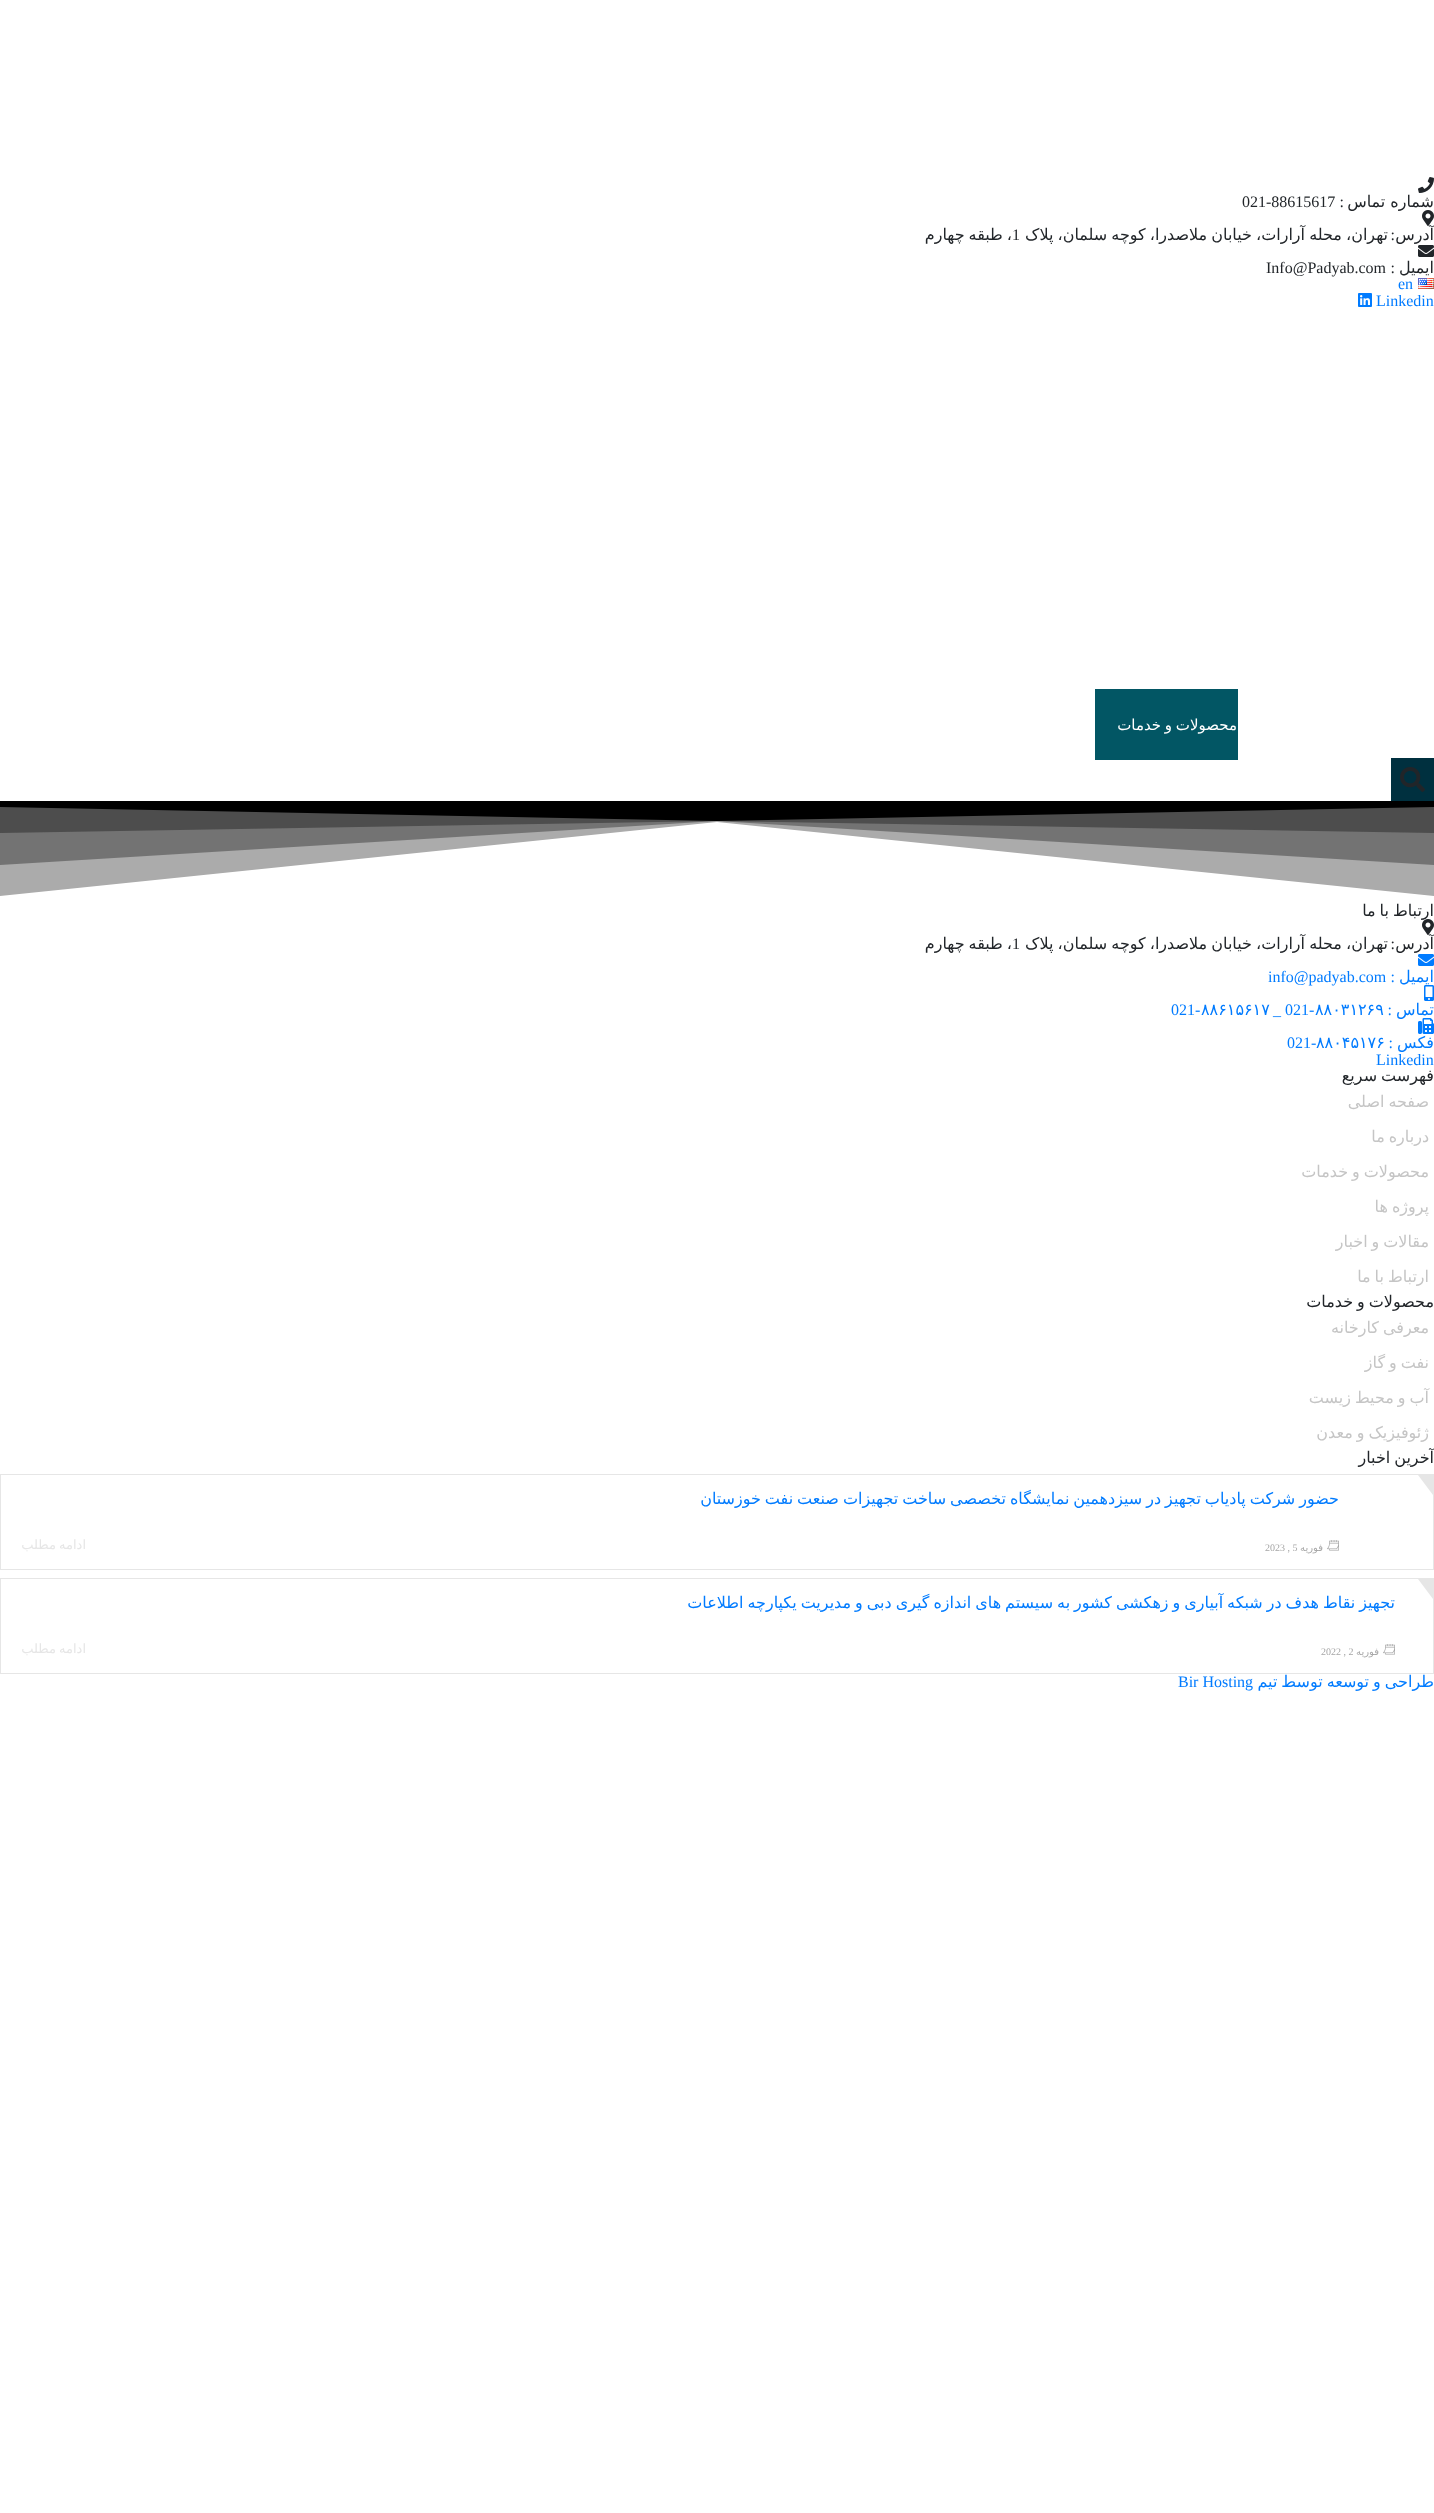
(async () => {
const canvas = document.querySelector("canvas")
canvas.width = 1434
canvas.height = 2513
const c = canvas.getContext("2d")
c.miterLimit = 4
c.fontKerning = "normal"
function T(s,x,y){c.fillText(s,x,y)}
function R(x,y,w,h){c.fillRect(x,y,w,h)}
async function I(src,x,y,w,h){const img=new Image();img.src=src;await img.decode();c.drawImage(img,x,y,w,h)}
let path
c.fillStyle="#fff"
R(0,0,1434,2513)
await I("1.png",1418,177,16,16)
c.direction="rtl"
c.font="16px DejaVu Sans"
c.fillStyle="#212529"
T("شماره تماس",1434,207)
c.font="16px Liberation Serif"
T(":",1344,207)
c.direction="ltr"
T("021-88615617",1242,207)
c.direction="rtl"
c.font="16px DejaVu Sans"
T("آدرس",1434,240)
await I("2.png",1422,210,12,16)
c.wordSpacing="-1px"
T("تهران، محله آرارات، خیابان ملاصدرا، کوچه سلمان، پلاک",1388,240)
c.wordSpacing="-1.1px"
T("، طبقه چهارم",1012,240)
c.wordSpacing="0px"
c.direction="ltr"
c.font="16px Liberation Serif"
T("1",1012,240)
c.direction="rtl"
T(":",1395,240)
await I("3.png",1418,245,16,12)
c.font="16px DejaVu Sans"
T("ایمیل",1434,273)
c.font="16px Liberation Serif"
T(":",1395,273)
c.direction="ltr"
T("Info@Padyab.com",1266,273)
await I("4.png",1418,278,16,11)
c.fillStyle="#007bff"
T("en",1398,289)
T("Linkedin",1376,306)
await I("5.png",1358,293,14,14)
c.fillStyle="#025664"
R(1095,689,143,71)
c.wordSpacing="-1px"
c.direction="rtl"
c.font="15px DejaVu Sans"
c.fillStyle="#fff"
T("محصولات و خدمات",1237,730)
c.fillStyle="#00303f"
R(1391,758,43,43)
await I("6.png",1400,767,25,25)
c.fillStyle="#ababab"
path = new Path2D("M0 801v95l717-74l717 74v-95z")
c.fill(path)
c.fillStyle="#737373"
path = new Path2D("M0 801v64l717-44l717 44v-64z")
c.fill(path)
c.fillStyle="#4d4d4d"
path = new Path2D("M0 801v32l717-12l717 12v-32z")
c.fill(path)
c.fillStyle="#000"
path = new Path2D("M0 801v6l717 14l717-14v-6z")
c.fill(path)
c.wordSpacing="-1.1px"
c.font="16px DejaVu Sans"
c.fillStyle="#212529"
T("ارتباط با ما",1434,916)
c.wordSpacing="0px"
T("آدرس",1434,949)
await I("7.png",1422,919,12,16)
c.wordSpacing="-1px"
T("تهران، محله آرارات، خیابان ملاصدرا، کوچه سلمان، پلاک",1388,949)
c.wordSpacing="-1.1px"
T("، طبقه چهارم",1012,949)
c.wordSpacing="0px"
c.direction="ltr"
c.font="16px Liberation Serif"
T("1",1012,949)
c.direction="rtl"
T(":",1395,949)
await I("8.png",1418,954,16,12)
c.font="16px DejaVu Sans"
c.fillStyle="#007bff"
T("ایمیل",1434,982)
c.font="16px Liberation Serif"
T(":",1395,982)
c.direction="ltr"
T("info@padyab.com",1268,982)
await I("9.png",1424,985,10,16)
c.direction="rtl"
c.font="16px DejaVu Sans"
T("تماس",1434,1015)
c.font="16px Liberation Serif"
T(":",1392,1015)
c.direction="ltr"
c.font="16px DejaVu Sans"
T("۸۸۰۳۱۲۶۹",1315,1015)
c.font="16px Liberation Serif"
T("_ 021-",1273,1015)
c.font="16px DejaVu Sans"
T("۸۸۶۱۵۶۱۷",1201,1015)
c.font="16px Liberation Serif"
T("021-",1171,1015)
await I("10.png",1418,1018,16,16)
c.direction="rtl"
c.font="16px DejaVu Sans"
T("فکس",1434,1048)
c.font="16px Liberation Serif"
T(":",1393,1048)
c.direction="ltr"
c.font="16px DejaVu Sans"
T("۸۸۰۴۵۱۷۶",1316,1048)
c.font="16px Liberation Serif"
T("021-",1287,1048)
T("Linkedin",1376,1065)
c.wordSpacing="-1.1px"
c.direction="rtl"
c.font="16px DejaVu Sans"
c.fillStyle="#212529"
T("فهرست سریع",1434,1081)
c.fillStyle="#c5c5c5"
T("صفحه اصلی",1429,1107)
T("درباره ما",1429,1142)
T("محصولات و خدمات",1429,1177)
T("پروژه ها",1429,1212)
T("مقالات و اخبار",1429,1247)
T("ارتباط با ما",1429,1282)
c.fillStyle="#212529"
T("محصولات و خدمات",1434,1307)
c.fillStyle="#c5c5c5"
T("معرفی کارخانه",1429,1333)
T("نفت و گاز",1429,1368)
T("آب و محیط زیست",1429,1403)
T("ژئوفیزیک و معدن",1429,1438)
c.fillStyle="#212529"
T("آخرین اخبار",1434,1463)
c.strokeStyle="#e6e6e6"
c.strokeRect(.5,1474.5,1433,95)
c.fillStyle="#e6e6e6"
path = new Path2D("M1418 1475h15v20z")
c.fill(path)
c.fillStyle="#007bff"
T("حضور شرکت پادیاب تجهیز در سیزدهمین نمایشگاه تخصصی ساخت تجهیزات صنعت نفت خوزستان",1339,1504)
await I("11.png",1327,1540,12,11)
c.wordSpacing="0px"
c.font="10px DejaVu Sans"
c.fillStyle="#a7a7a7"
T("فوریه",1323,1551)
c.direction="ltr"
c.font="10px Liberation Serif"
T("2023 , 5",1265,1551)
c.wordSpacing="-1px"
c.direction="rtl"
c.font="13px DejaVu Sans"
c.fillStyle="#e6e6e6"
T("ادامه مطلب",86,1549)
c.strokeRect(.5,1578.5,1433,95)
path = new Path2D("M1418 1579h15v20z")
c.fill(path)
c.wordSpacing="-1.1px"
c.font="16px DejaVu Sans"
c.fillStyle="#007bff"
T("تجهیز نقاط هدف در شبکه آبیاری و زهکشی کشور به سیستم های اندازه گیری دبی و مدیریت یکپارچه اطلاعات",1395,1608)
await I("11.png",1383,1644,12,11)
c.wordSpacing="0px"
c.font="10px DejaVu Sans"
c.fillStyle="#a7a7a7"
T("فوریه",1379,1655)
c.direction="ltr"
c.font="10px Liberation Serif"
T("2022 , 2",1321,1655)
c.wordSpacing="-1px"
c.direction="rtl"
c.font="13px DejaVu Sans"
c.fillStyle="#e6e6e6"
T("ادامه مطلب",86,1653)
c.wordSpacing="-1.1px"
c.font="16px DejaVu Sans"
c.fillStyle="#007bff"
T("طراحی و توسعه توسط تیم",1434,1687)
c.wordSpacing="0px"
c.direction="ltr"
c.font="16px Liberation Serif"
T("Bir Hosting",1178,1687)
})()
